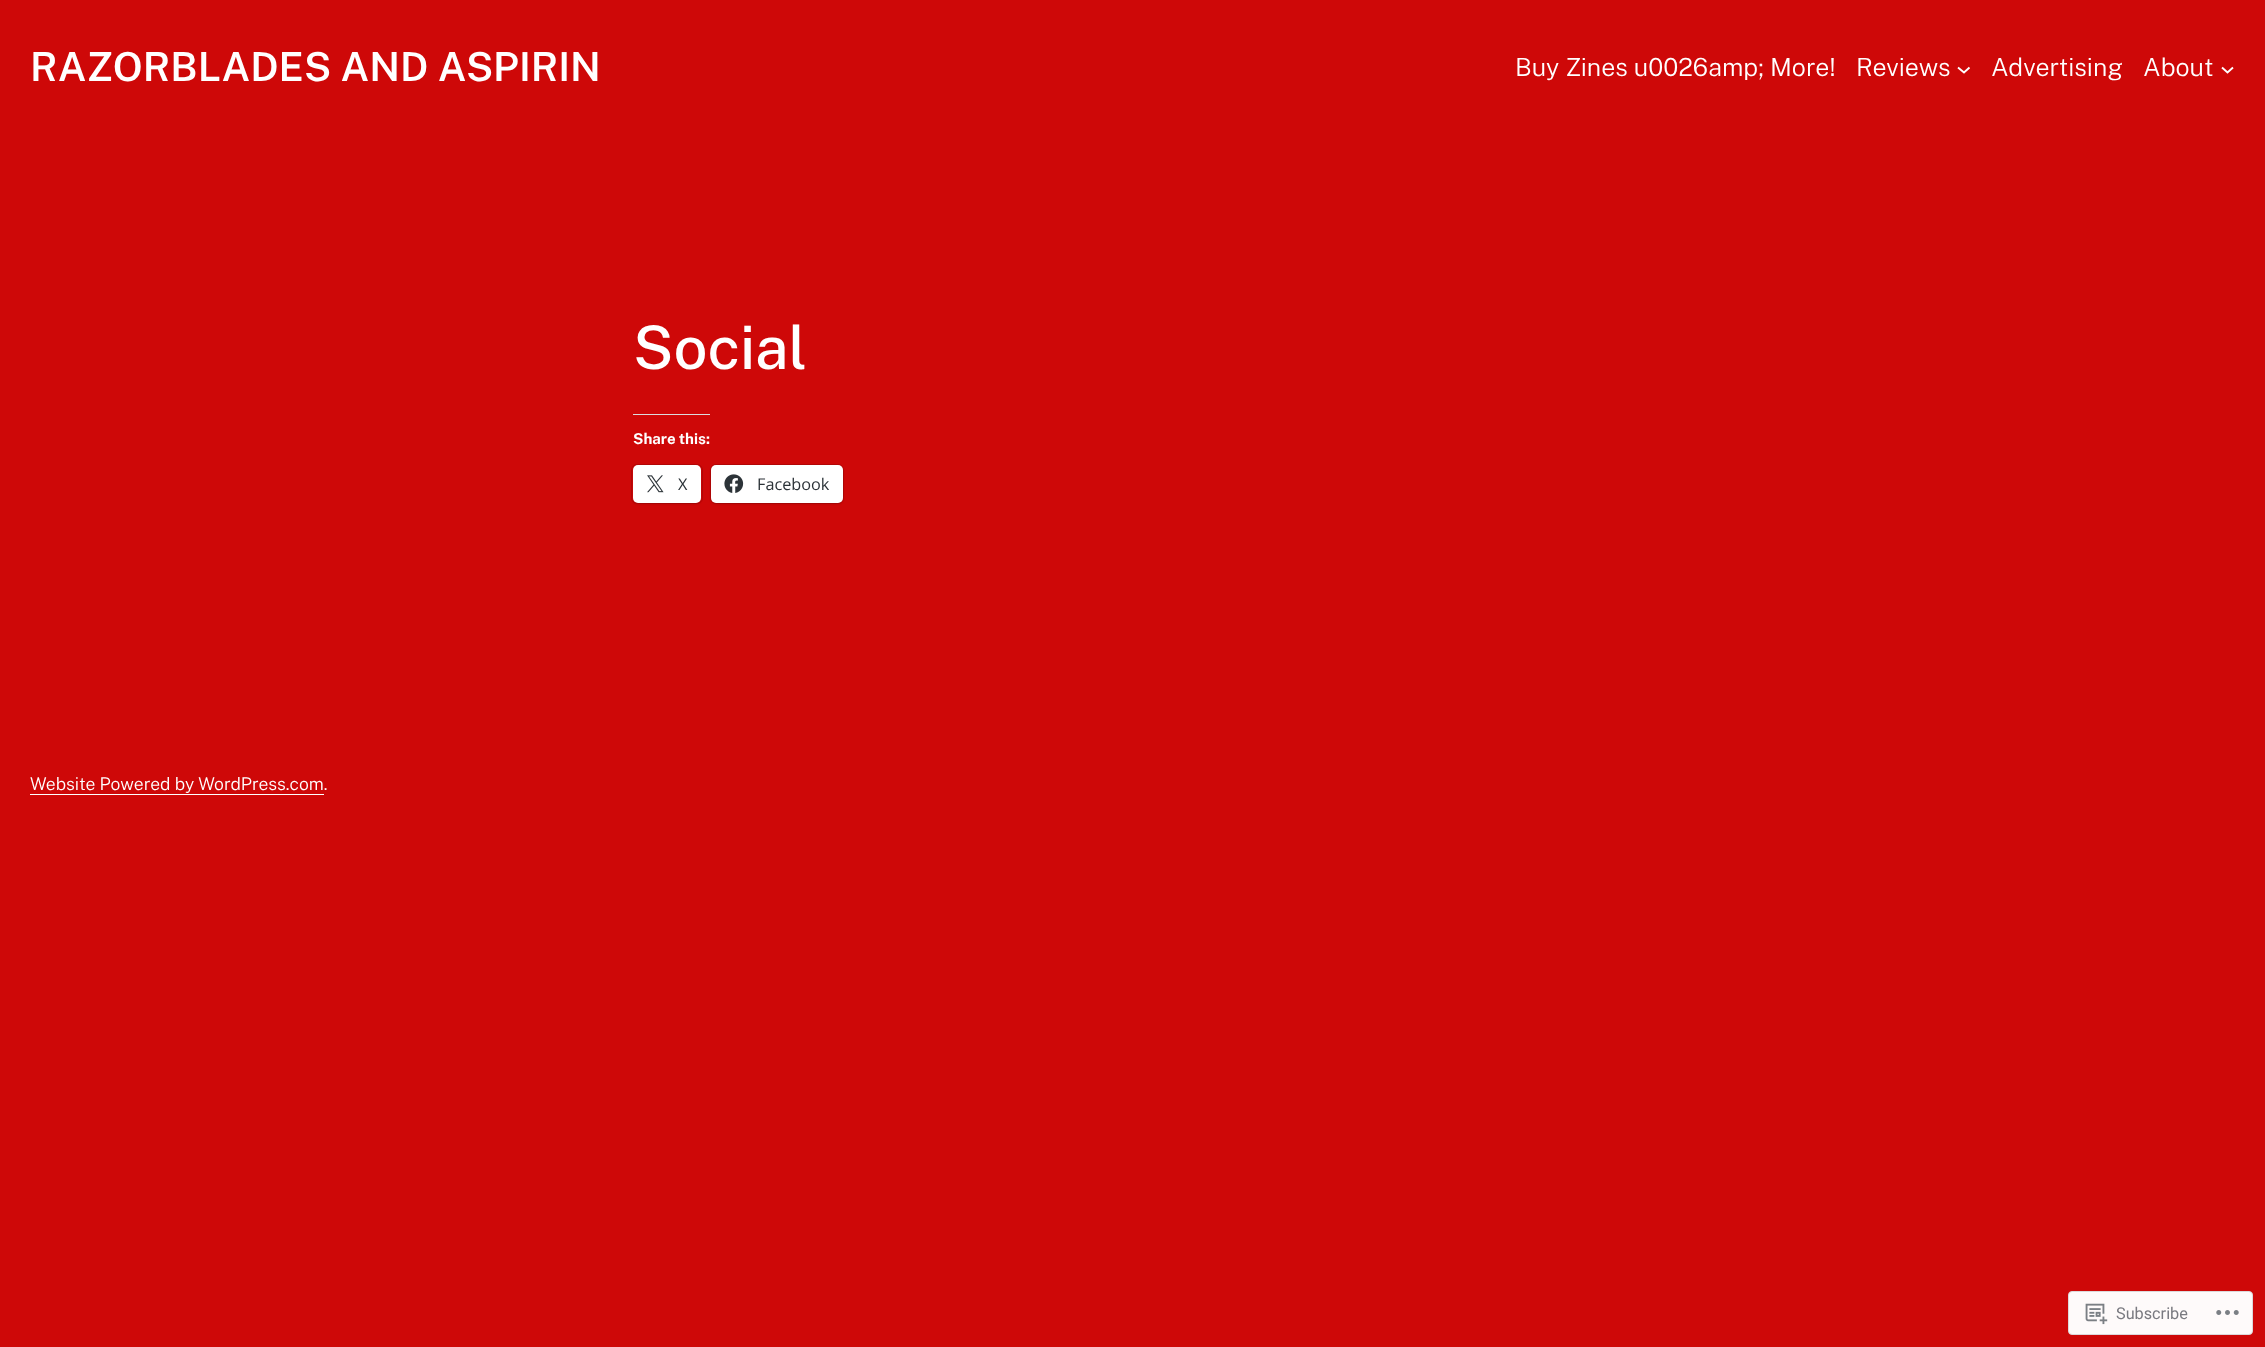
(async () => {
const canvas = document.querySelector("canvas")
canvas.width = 2265
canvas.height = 1347
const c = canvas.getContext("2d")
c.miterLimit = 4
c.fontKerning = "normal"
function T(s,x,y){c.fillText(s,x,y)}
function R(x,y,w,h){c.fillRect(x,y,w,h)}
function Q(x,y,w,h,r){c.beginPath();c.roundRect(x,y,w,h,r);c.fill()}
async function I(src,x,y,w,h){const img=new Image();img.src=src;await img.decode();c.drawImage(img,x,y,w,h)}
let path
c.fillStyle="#ce0808"
R(0,0,2265,1347)
c.font="600 40px Public Sans"
c.fillStyle="#fff"
T("RAZORBLADES AND ASPIRIN",30,81)
c.font="300 25px Public Sans"
T("Buy Zines u0026amp; More!",1515,76)
T("Reviews",1856,76)
path = new Path2D("M1958 67.5l6 5l5.5-5")
c.strokeStyle="#fff"
c.lineWidth=1.9
c.stroke(path)
T("Advertising",1991,76)
T("About",2143,76)
path = new Path2D("M2222 67.5l5.5 5l5.5-5")
c.stroke(path)
c.font="500 60px Public Sans"
T("Social",633,369)
c.fillStyle="#dcdcde"
R(633,414,77,1)
c.font="bold 15px Public Sans"
c.fillStyle="#fff"
T("Share this:",633,444)
c.beginPath()
c.roundRect(631.5,464.5,71,39,5.5)
c.strokeStyle="#b50707"
c.lineWidth=1
c.stroke()
c.fillStyle="#0000001f"
c.filter="blur(1px)"
c.beginPath()
c.roundRect(633,466,68,38,5)
c.fill()
c.filter="none"
c.fillStyle="#fff"
Q(633,465,68,38,5)
await I("1.png",647,475,17,18)
c.font="16.25px Open Sans"
c.fillStyle="#2c3338"
T("X",678,490)
c.beginPath()
c.roundRect(710.5,464.5,133,39,5.5)
c.stroke()
c.fillStyle="#0000001f"
c.filter="blur(1px)"
c.beginPath()
c.roundRect(711,466,132,38,5)
c.fill()
c.filter="none"
c.fillStyle="#fff"
Q(711,465,132,38,5)
await I("2.png",724,474,20,19)
c.fillStyle="#2c3338"
T("Facebook",757,490)
c.font="300 17.5px Public Sans"
c.fillStyle="#fff"
T("Website Powered by WordPress.com.",30,790)
R(30,794,294,1)
c.fillStyle="#fefafa"
c.beginPath()
c.roundRect(2068.5,1291.5,184,43,3.5)
c.fill()
c.strokeStyle="#dcd8da"
c.stroke()
await I("3.png",2085,1303,23,22)
c.font="16.25px Roboto"
c.fillStyle="#7a7a80"
T("Subscribe",2116,1319)
await I("4.png",2216,1310,23,5)
})()
